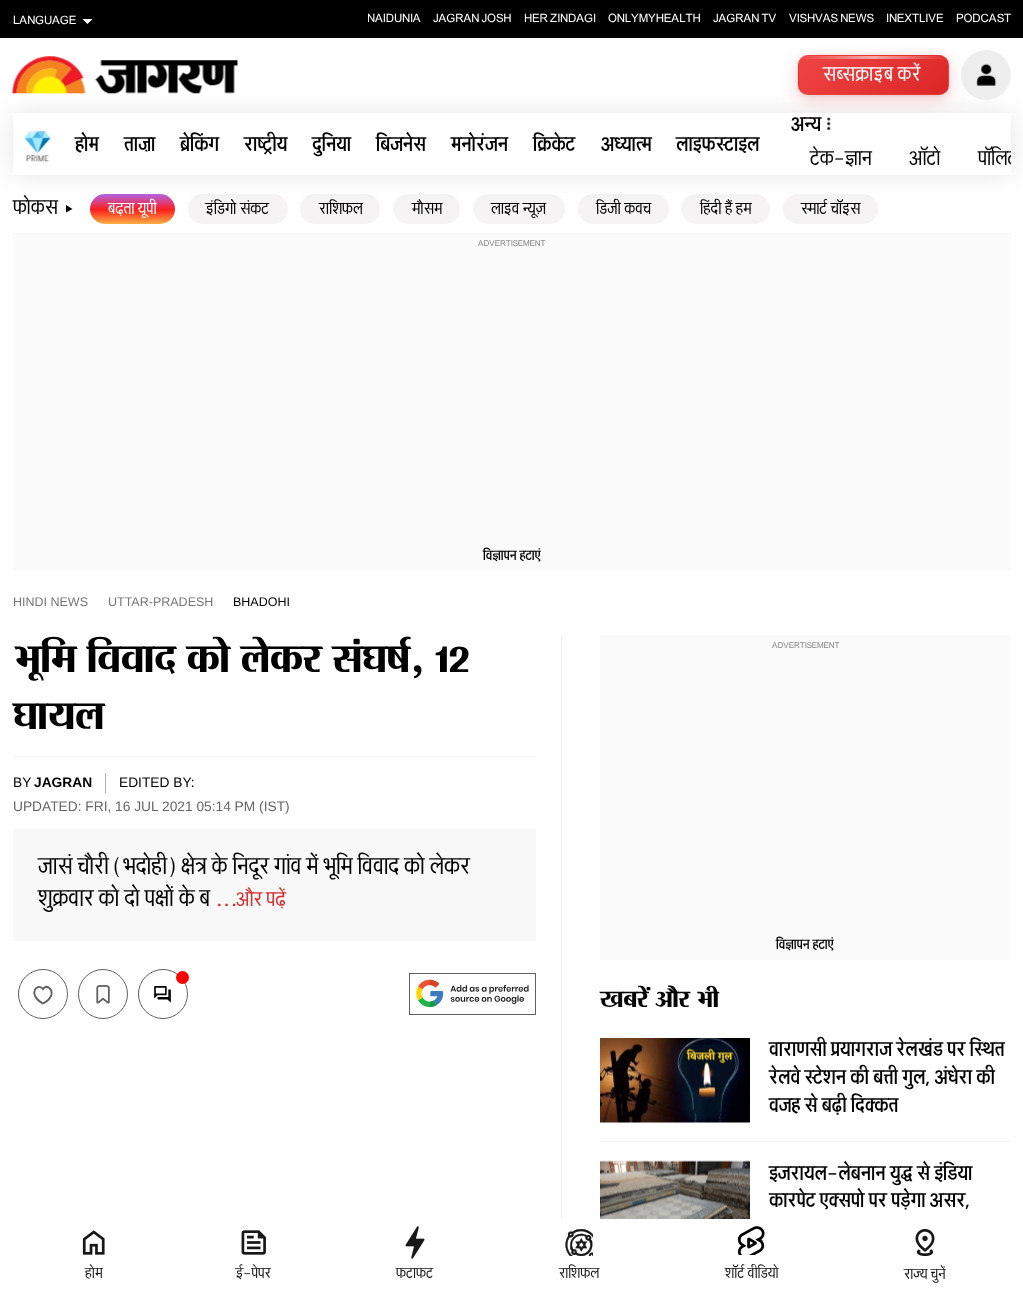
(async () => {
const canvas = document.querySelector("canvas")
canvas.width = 1023
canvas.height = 1289
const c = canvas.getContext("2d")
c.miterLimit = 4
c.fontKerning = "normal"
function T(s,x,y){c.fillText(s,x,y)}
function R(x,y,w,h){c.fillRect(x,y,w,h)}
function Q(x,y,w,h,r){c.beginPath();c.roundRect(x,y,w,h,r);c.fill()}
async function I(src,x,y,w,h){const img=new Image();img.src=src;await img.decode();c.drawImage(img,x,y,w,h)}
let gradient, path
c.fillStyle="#fff"
R(0,0,1023,1289)
c.fillStyle="#000"
path = new Path2D("M66 212.5v-7.5l6.5 4z")
c.fill(path)
gradient = c.createLinearGradient(133,194,133,224)
gradient.addColorStop(0,"#b265e6")
gradient.addColorStop(.52,"#fd1d1d")
gradient.addColorStop(1,"#fcb045")
c.fillStyle = gradient
Q(90,194,85,30,15)
c.fillStyle="#f5f3f3"
Q(188,194,100,30,15)
Q(300,194,80,30,15)
Q(393,194,67,30,15)
Q(473,194,92,30,15)
Q(578,194,91,30,15)
Q(681,194,89,30,15)
Q(783,194,95,30,15)
c.save()
path = new Path2D("M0 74h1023v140h-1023zm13 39h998v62h-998z")
c.clip(path,"evenodd")
c.fillStyle="#0000001a"
c.filter="blur(12.5px)"
c.beginPath()
c.rect(13,113,998,62)
c.fill()
c.filter="none"
c.restore()
c.fillStyle="#eee"
c.beginPath()
c.arc(986,75,25,0,7)
c.fill()
await I("2.png",976,63,21,23)
await I("4.png",827,117,4,13)
c.fillStyle="#ef444440"
c.filter="blur(9px)"
c.beginPath()
c.roundRect(798,60,151,40,10)
c.fill()
c.filter="none"
c.fillStyle="#000"
R(0,0,1023,38)
c.font="12.5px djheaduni"
c.fillStyle="#fff"
T("LANGUAGE",13,24)
path = new Path2D("M82.5 19h10l-5 5z")
c.fill(path)
c.save()
c.beginPath()
c.rect(368,10,643,18)
c.clip()
T("NAIDUNIA",367,22)
c.restore()
T("JAGRAN JOSH",433,22)
T("HER ZINDAGI",524,22)
T("ONLYMYHEALTH",608,22)
T("JAGRAN TV",713,22)
T("VISHVAS NEWS",789,22)
T("INEXTLIVE",886,22)
T("PODCAST",956,22)
await I("1.png",12,56,226,39)
c.fillStyle="#0000001a"
c.filter="blur(2px)"
c.beginPath()
c.roundRect(798,56,151,40,10)
c.fill()
c.filter="none"
c.save()
c.beginPath()
c.roundRect(798,55,151,40,10)
c.clip()
gradient = c.createLinearGradient(827,-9,920,84)
gradient.addColorStop(0,"#ef4444")
gradient.addColorStop(1,"#dc2626")
c.fillStyle = gradient
R(799,55,149,1)
gradient = c.createLinearGradient(678,28,771,122)
gradient.addColorStop(0,"#ef4444")
gradient.addColorStop(1,"#dc2626")
c.fillStyle = gradient
R(798,56,1,38)
gradient = c.createLinearGradient(827,28,920,122)
gradient.addColorStop(0,"#ef4444")
gradient.addColorStop(1,"#dc2626")
c.fillStyle = gradient
R(799,56,149,38)
gradient = c.createLinearGradient(975,28,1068,122)
gradient.addColorStop(0,"#ef4444")
gradient.addColorStop(1,"#dc2626")
c.fillStyle = gradient
R(948,56,1,38)
gradient = c.createLinearGradient(827,66,920,159)
gradient.addColorStop(0,"#ef4444")
gradient.addColorStop(1,"#dc2626")
c.fillStyle = gradient
R(799,94,149,1)
c.restore()
c.beginPath()
c.roundRect(798.5,55.5,150,39,9.5)
c.strokeStyle="#ef444433"
c.stroke()
gradient = c.createLinearGradient(799,58,948,57)
gradient.addColorStop(0,"#ffffff00")
gradient.addColorStop(.5,"#ffffff8f")
gradient.addColorStop(1,"#ffffff00")
c.fillStyle = gradient
R(799,56,149,3)
c.letterSpacing="0.6px"
c.wordSpacing="-1px"
c.font="23.75px djheaduni"
c.fillStyle="#fff"
T("सब्सक्राइब करें",823,81)
await I("3.png",24,131,27,31)
c.letterSpacing="0px"
c.wordSpacing="0px"
c.font="bold 24px djheaduni"
c.fillStyle="#000"
T("होम",75,151)
T("ताज़ा",124,151)
T("ब्रेकिंग",180,151)
T("राष्ट्रीय",244,151)
T("दुनिया",312,151)
T("बिजनेस",376,151)
T("मनोरंजन",451,151)
T("क्रिकेट",533,151)
T("अध्यात्म",601,151)
T("लाइफस्टाइल",676,151)
T("अन्य",791,131)
c.font="24px djheaduni"
T("टेक-ज्ञान",810,165)
T("ऑटो",909,165)
c.save()
c.beginPath()
c.rect(13,113,998,67)
c.clip()
T("पॉलिट",978,165)
c.restore()
T("फोकस",13,214)
c.font="19px djheaduni"
c.fillStyle="#fff"
T("बढ़ता यूपी",108,214)
c.fillStyle="#000"
T("इंडिगो संकट",206,214)
T("राशिफल",319,214)
T("मौसम",412,214)
T("लाइव न्यूज़",491,214)
T("डिजी कवच",596,214)
T("हिंदी हैं हम",700,214)
T("स्मार्ट चॉइस",801,214)
c.fillStyle="#fafafa"
R(13,233,998,337)
c.font="8.75px djheaduni"
c.fillStyle="#888"
T("ADVERTISEMENT",478,246)
c.font="bold 16px djheaduni"
c.fillStyle="#000"
T("विज्ञापन हटाएं",483,560)
c.font="12.5px Liberation Sans"
c.fillStyle="#767676"
T("HINDI NEWS",13,606)
T("UTTAR-PRADESH",108,606)
c.fillStyle="#000"
T("BHADOHI",233,606)
c.font="50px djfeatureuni"
T("भूमि विवाद को लेकर संघर्ष, 12",13,672)
T("घायल",13,729)
c.fillStyle="#f2f2f2"
R(13,756,523,1)
c.fillStyle="#b3b3b3"
R(105,773,1,20)
c.font="13.75px Liberation Sans"
c.fillStyle="#000"
T("BY",13,787)
c.font="bold 13.75px Liberation Sans"
T("JAGRAN",34,787)
c.font="13.75px Liberation Sans"
T("EDITED BY:",119,787)
c.fillStyle="#666"
T("UPDATED: FRI, 16 JUL 2021 05:14 PM (IST)",13,811)
c.fillStyle="#f8f8f8"
R(13,829,523,112)
c.font="27.5px djheaduni"
c.fillStyle="#000"
T("जासं चौरी (भदोही) क्षेत्र के निदूर गांव में भूमि विवाद को लेकर",38,874)
T("शुक्रवार को दो पक्षों के ब",38,906)
c.font="24px djheaduni"
c.fillStyle="#d32f2f"
T("...और पढ़ें",214,906)
c.beginPath()
c.arc(43,994,24.5,0,7)
c.strokeStyle="#616161"
c.stroke()
path = new Path2D("M51.5 994.5c-1 5-8.5 9-8.5 9c-17-9.5-5-21.5 0-14.5c3-4.5 9.5-1 8.5 5.5z")
c.lineWidth=1.9
c.stroke(path)
c.beginPath()
c.arc(103,994,24.5,0,7)
c.lineWidth=1
c.stroke()
await I("5.png",96,985,14,19)
c.beginPath()
c.arc(163,994,24.5,0,7)
c.stroke()
c.fillStyle="#f00"
c.beginPath()
c.arc(182.5,977.5,6.5,0,7)
c.fill()
await I("6.png",154,986,17,17)
c.strokeRect(409.5,973.5,126,41)
await I("7.png",416,979,113,28)
c.fillStyle="#f0efef"
R(561,635,1,584)
c.fillStyle="#fafafa"
R(600,635,411,325)
c.font="8.75px djheaduni"
c.fillStyle="#888"
T("ADVERTISEMENT",772,648)
c.font="bold 16px djheaduni"
c.fillStyle="#000"
T("विज्ञापन हटाएं",776,949)
c.font="30px djfeatureuni"
T("खबरें और भी",600,1007)
c.fillStyle="#f5f3f3"
R(600,1141,411,1)
await I("8.png",600,1038,150,85)
c.font="bold 24px djheaduni"
c.fillStyle="#000"
T("वाराणसी प्रयागराज रेलखंड पर स्थित",769,1056)
T("रेलवे स्टेशन की बत्ती गुल, अंधेरा की",769,1084)
T("वजह से बढ़ी दिक्कत",769,1112)
await I("9.png",600,1160,150,59)
T("इजरायल-लेबनान युद्ध से इंडिया",769,1180)
T("कारपेट एक्सपो पर पड़ेगा असर,",769,1207)
await I("10.png",82,1230,23,25)
c.font="17.5px djheaduni"
c.fillStyle="#181818"
T("होम",85,1278)
await I("11.png",241,1230,25,25)
T("ई-पेपर",236,1278)
await I("12.png",405,1226,20,33)
T("फटाफट",396,1278)
await I("13.png",565,1229,28,27)
T("राशिफल",559,1278)
await I("14.png",738,1226,27,29)
T("शॉर्ट वीडियो",725,1278)
await I("15.png",915,1229,20,27)
T("राज्य चुनें",904,1279)
})()
